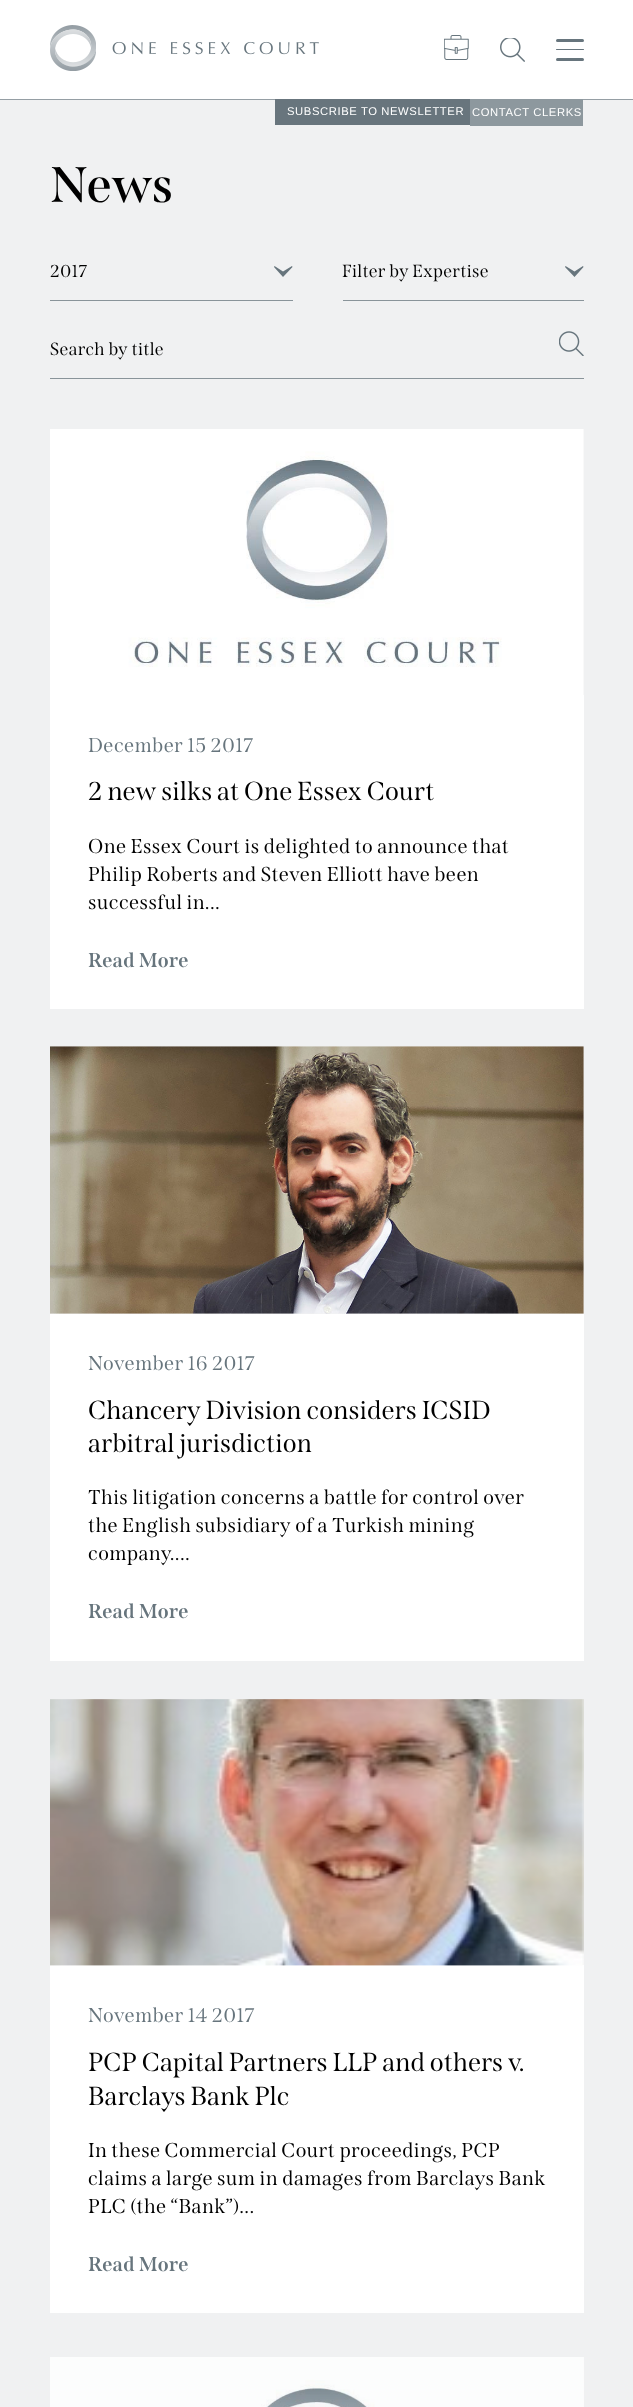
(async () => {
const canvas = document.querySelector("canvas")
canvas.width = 633
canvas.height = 2407
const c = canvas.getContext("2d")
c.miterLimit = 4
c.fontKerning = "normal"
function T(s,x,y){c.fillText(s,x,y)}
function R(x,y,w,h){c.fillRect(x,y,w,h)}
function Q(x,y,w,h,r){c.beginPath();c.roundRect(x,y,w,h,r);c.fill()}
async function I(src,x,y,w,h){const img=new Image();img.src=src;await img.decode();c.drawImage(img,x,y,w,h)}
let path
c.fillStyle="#f0f1f2"
R(0,0,633,2407)
c.fillStyle="#fff"
R(0,0,633,99)
c.fillStyle="#959ea4"
R(0,99,633,1)
await I("1.png",50,25,269,46)
c.fillStyle="#67757d"
Q(556,58,28,3,1.5)
Q(556,39,28,3,1.5)
Q(556,49,28,1,.5)
await I("2.png",444,35,25,25)
await I("3.png",500,38,25,24)
c.fillStyle="#68757d"
R(275,99,195,26)
c.letterSpacing="0.6px"
c.font="11.25px Liberation Sans"
c.fillStyle="#fff"
T("SUBSCRIBE TO NEWSLETTER",287,115)
c.fillStyle="#8d989e"
R(470,99,113,27)
c.fillStyle="#fff"
T("CONTACT CLERKS",472,116)
c.letterSpacing="0px"
c.font="600 50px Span"
c.fillStyle="#000"
T("News",50,202)
c.fillStyle="#89949a"
R(50,300,243,1)
c.letterSpacing="0.3px"
c.font="17.5px Span"
c.fillStyle="#000"
T("2017",50,277)
c.fillStyle="#67757d"
path = new Path2D("M292 266l-9 5.5l-8.5-5.5l-.5 1l9 10l9.5-10z")
c.fill(path)
c.fillStyle="#89949a"
R(343,300,241,1)
c.fillStyle="#000"
T("Filter by Expertise",342,277)
c.fillStyle="#67757d"
path = new Path2D("M583 266l-8.5 5.5l-9-5.5l-.5 1l9.5 10l9-10z")
c.fill(path)
c.fillStyle="#89949a"
R(50,378,534,1)
c.fillStyle="#000"
T("Search by title",50,355)
await I("4.png",559,331,25,25)
await I("5.png",50,429,534,266)
c.fillStyle="#fff"
R(50,695,534,314)
c.letterSpacing="0.4px"
c.font="20px Span"
c.fillStyle="#67757d"
T("December 15 2017",88,752)
c.letterSpacing="0px"
c.font="26px Span"
c.fillStyle="#000"
T("2 new silks at One Essex Court",88,800)
c.letterSpacing="0.4px"
c.font="20px Span"
T("One Essex Court is delighted to announce that",88,853)
T("Philip Roberts and Steven Elliott have been",88,881)
T("successful in...",88,909)
c.font="bold 20px Span"
c.fillStyle="#67757d"
T("Read More",88,967)
await I("6.png",50,1046,534,268)
c.fillStyle="#fff"
R(50,1314,534,347)
c.font="20px Span"
c.fillStyle="#67757d"
T("November 16 2017",88,1370)
c.letterSpacing="0px"
c.font="26px Span"
c.fillStyle="#000"
T("Chancery Division considers ICSID",88,1419)
T("arbitral jurisdiction",88,1452)
c.letterSpacing="0.4px"
c.font="20px Span"
T("This litigation concerns a battle for control over",88,1504)
T("the English subsidiary of a Turkish mining",88,1532)
T("company....",88,1560)
c.font="bold 20px Span"
c.fillStyle="#67757d"
T("Read More",88,1618)
c.fillStyle="#fff"
R(50,1965,534,348)
await I("7.png",50,1699,534,267)
c.font="20px Span"
c.fillStyle="#67757d"
T("November 14 2017",88,2022)
c.letterSpacing="0px"
c.font="26px Span"
c.fillStyle="#000"
T("PCP Capital Partners LLP and others v.",88,2071)
T("Barclays Bank Plc",88,2105)
c.letterSpacing="0.4px"
c.font="20px Span"
T("In these Commercial Court proceedings, PCP",88,2157)
T("claims a large sum in damages from Barclays Bank",88,2185)
T("PLC (the “Bank”)...",88,2213)
c.font="bold 20px Span"
c.fillStyle="#67757d"
T("Read More",88,2271)
await I("8.png",50,2357,534,50)
})()
